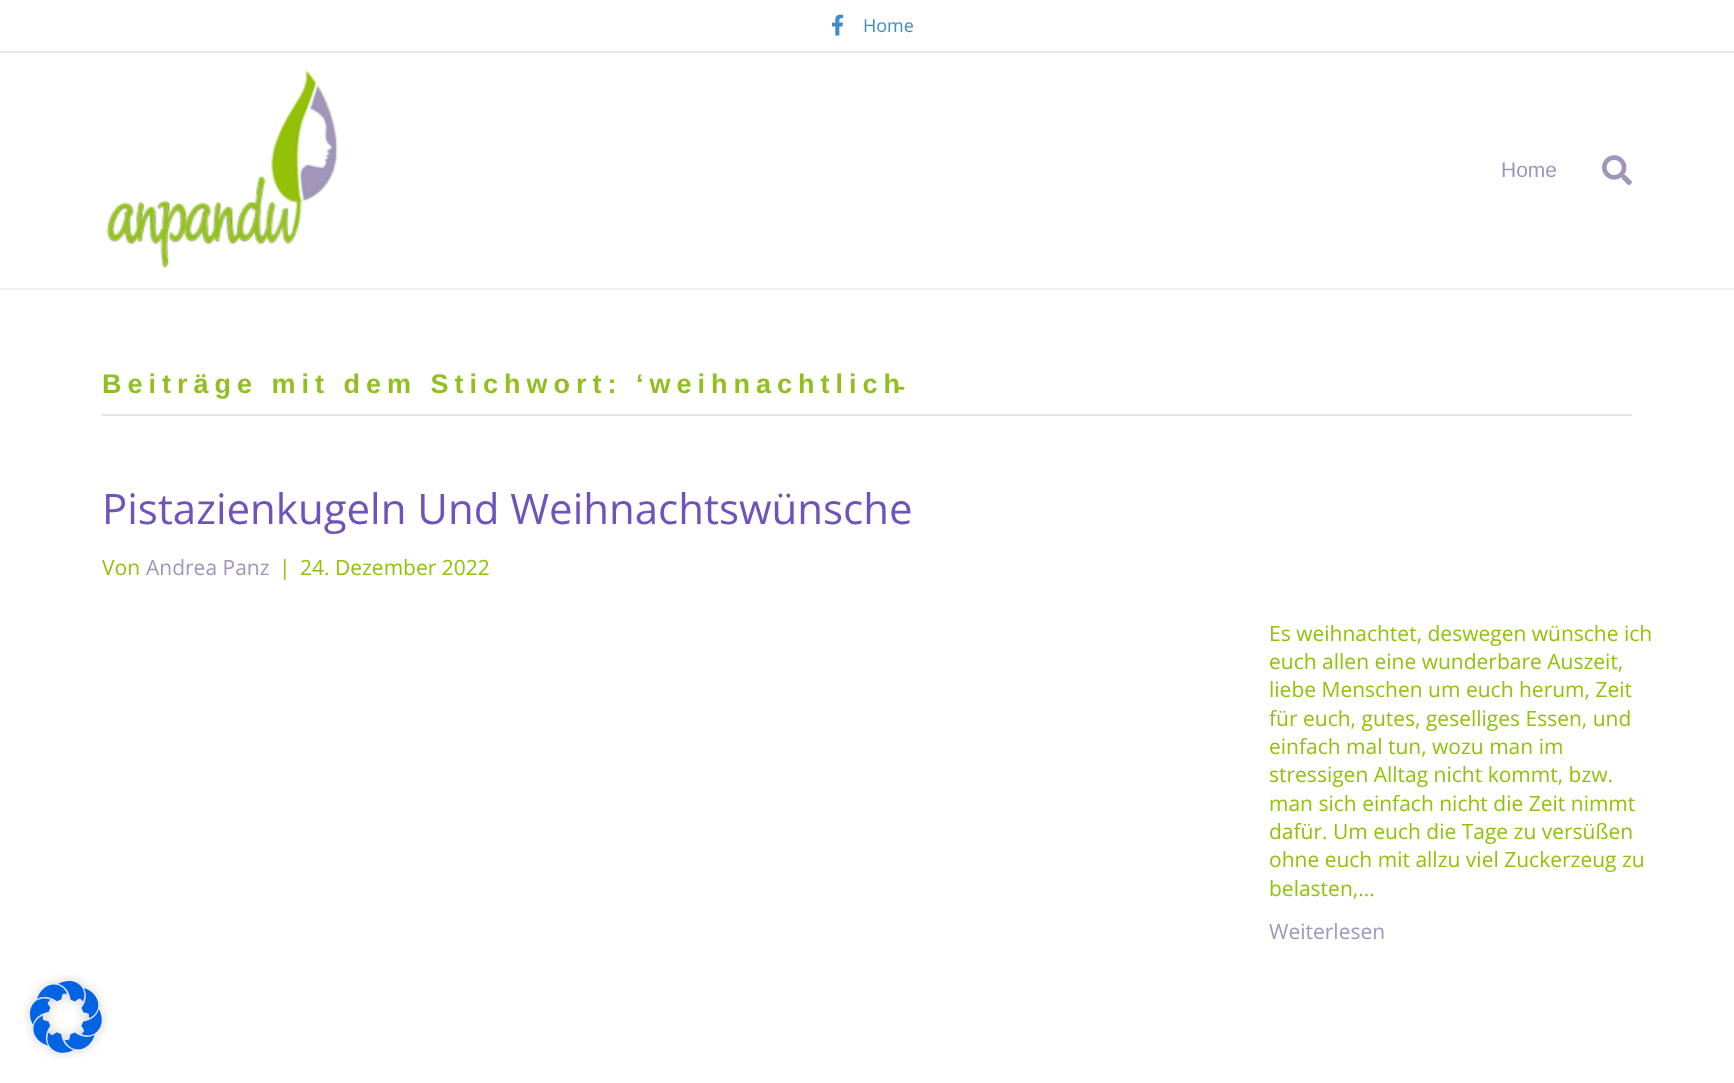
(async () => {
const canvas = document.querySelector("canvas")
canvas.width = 1734
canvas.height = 1083
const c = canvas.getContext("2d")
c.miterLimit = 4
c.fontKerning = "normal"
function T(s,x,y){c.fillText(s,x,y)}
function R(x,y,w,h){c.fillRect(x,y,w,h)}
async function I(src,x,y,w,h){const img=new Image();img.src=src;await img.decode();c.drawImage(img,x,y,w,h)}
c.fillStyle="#fff"
R(0,0,1734,1083)
c.fillStyle="#e6e6e6"
R(0,51,1734,2)
await I("1.png",831,14,13,22)
c.font="18px Open Sans"
c.fillStyle="#428bca"
T("Home",863,32)
c.fillStyle="#f3f1f6"
R(0,288,1734,2)
await I("2.png",106,70,232,198)
c.font="21px Liberation Sans"
c.fillStyle="#a195ba"
T("Home",1501,177)
await I("3.png",1602,155,30,31)
c.fillStyle="#e6e6e6"
R(102,414,1530,2)
c.letterSpacing="6px"
c.font="bold 27px Liberation Sans"
c.fillStyle="#92bf20"
T("Beiträge mit dem Stichwort: ‘weihnachtlich̵",102,393)
c.letterSpacing="0px"
c.font="42px Open Sans"
c.fillStyle="#7053ba"
T("Pistazienkugeln Und Weihnachtswünsche",102,524)
c.font="21px Open Sans"
c.fillStyle="#92c109"
T("Von",102,575)
c.fillStyle="#a195ba"
T("Andrea Panz",146,575)
c.fillStyle="#92c109"
T("|",279,575)
T("24. Dezember 2022",300,575)
T("Es weihnachtet, deswegen wünsche ich",1269,641)
T("euch allen eine wunderbare Auszeit,",1269,669)
T("liebe Menschen um euch herum, Zeit",1269,697)
T("für euch, gutes, geselliges Essen, und",1269,726)
T("einfach mal tun, wozu man im",1269,754)
T("stressigen Alltag nicht kommt, bzw.",1269,782)
T("man sich einfach nicht die Zeit nimmt",1269,811)
T("dafür. Um euch die Tage zu versüßen",1269,839)
T("ohne euch mit allzu viel Zuckerzeug zu",1269,867)
T("belasten,…",1269,896)
c.fillStyle="#a195ba"
T("Weiterlesen",1269,939)
await I("4.png",24,975,84,84)
})()
